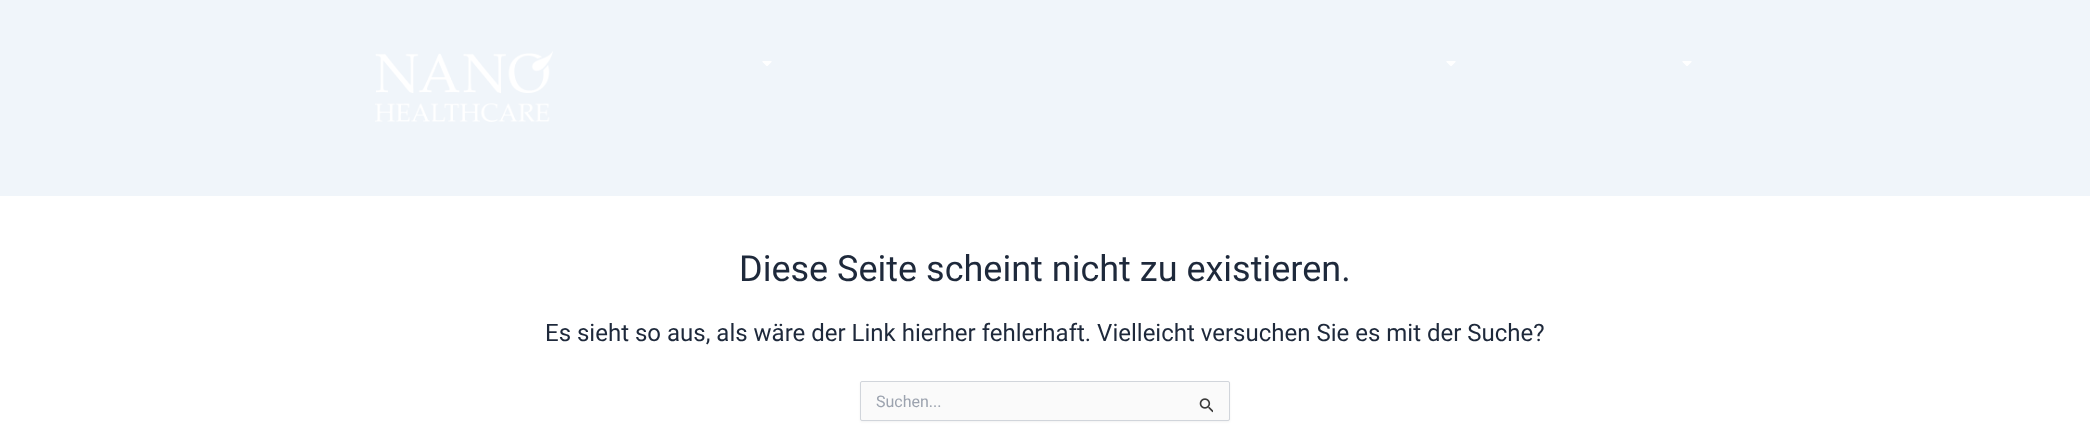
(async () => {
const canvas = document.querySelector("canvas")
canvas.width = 2090
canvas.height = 438
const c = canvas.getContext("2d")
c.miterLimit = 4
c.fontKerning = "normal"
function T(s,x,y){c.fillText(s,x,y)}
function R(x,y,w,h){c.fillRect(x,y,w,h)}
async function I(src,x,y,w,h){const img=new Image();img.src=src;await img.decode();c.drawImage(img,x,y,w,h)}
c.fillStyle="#f0f5fa"
R(0,0,2090,438)
await I("1.png",375,51,178,71)
await I("2.png",762,61,10,5)
await I("2.png",1446,61,10,5)
await I("2.png",1682,61,10,5)
c.fillStyle="#fff"
R(0,196,2090,242)
c.font="36px Roboto"
c.fillStyle="#1e293b"
T("Diese Seite scheint nicht zu existieren.",739,281)
c.font="24px Roboto"
T("Es sieht so aus, als wäre der Link hierher fehlerhaft. Vielleicht versuchen Sie es mit der Suche?",545,341)
c.fillStyle="#0000000d"
c.filter="blur(1px)"
c.beginPath()
c.roundRect(860,382,370,40,2)
c.fill()
c.filter="none"
c.fillStyle="#fafafa"
c.beginPath()
c.roundRect(860.5,381.5,369,39,1.5)
c.fill()
c.strokeStyle="#d1d5db"
c.stroke()
c.font="16px Roboto"
c.fillStyle="#9ca3af"
T("Suchen...",876,407)
await I("3.png",1199,398,14,15)
})()
